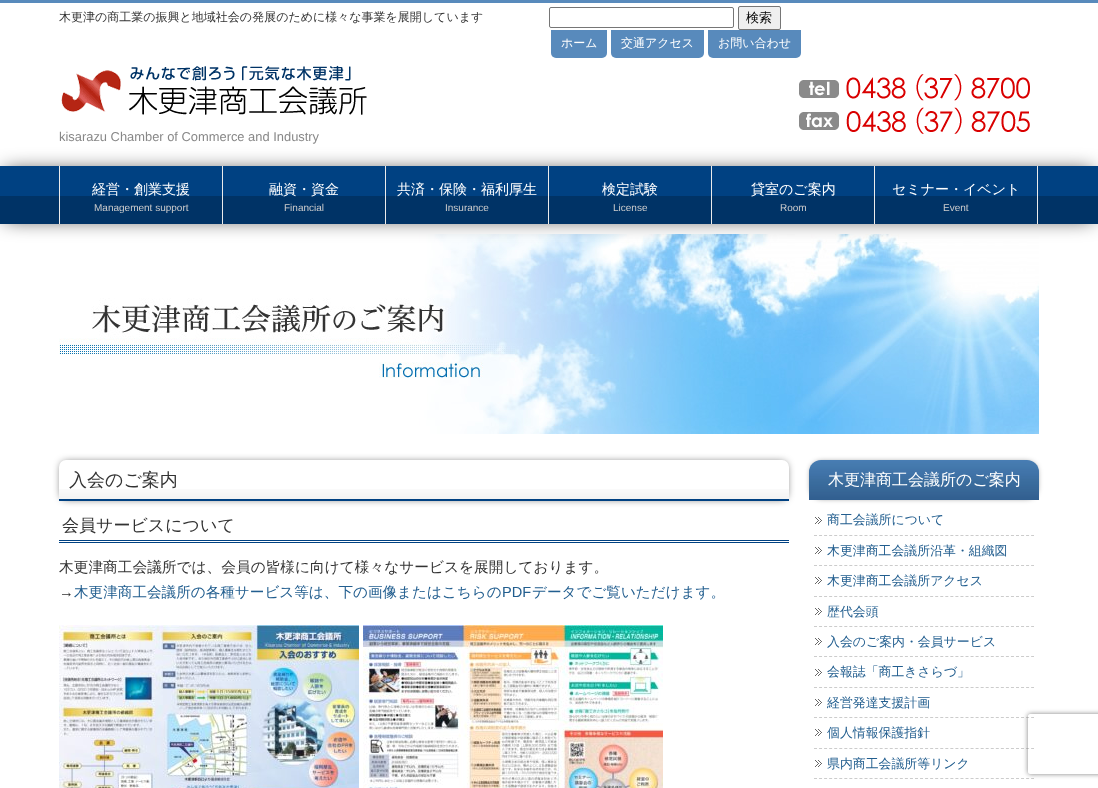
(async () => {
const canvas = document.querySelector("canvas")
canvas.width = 1098
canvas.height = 788
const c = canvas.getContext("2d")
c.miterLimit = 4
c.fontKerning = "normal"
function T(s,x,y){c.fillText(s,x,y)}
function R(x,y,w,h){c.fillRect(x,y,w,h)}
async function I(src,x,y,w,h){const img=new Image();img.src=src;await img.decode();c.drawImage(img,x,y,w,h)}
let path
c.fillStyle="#fff"
R(0,0,1098,788)
c.fillStyle="#588abc"
R(0,0,1098,3)
c.font="500 12px WenQuanYi Zen Hei"
c.fillStyle="#333"
T("木更津の商工業の振興と地域社会の発展のために様々な事業を展開しています",59,21)
c.beginPath()
c.roundRect(549.5,7.5,184,20,1.5)
c.strokeStyle="#767676"
c.stroke()
c.fillStyle="#efefef"
c.beginPath()
c.roundRect(738.5,6.5,42,23,1.5)
c.fill()
c.stroke()
c.font="500 13px WenQuanYi Zen Hei"
c.fillStyle="#000"
T("検索",746,22)
c.fillStyle="#588abc"
c.beginPath()
c.roundRect(551,30,56,28,[0,0,5,5])
c.fill()
c.font="500 12px WenQuanYi Zen Hei"
c.fillStyle="#fff"
T("ホーム",561,47)
c.fillStyle="#588abc"
c.beginPath()
c.roundRect(611,30,93,28,[0,0,5,5])
c.fill()
c.fillStyle="#fff"
T("交通アクセス",621,47)
c.fillStyle="#588abc"
c.beginPath()
c.roundRect(708,30,93,28,[0,0,5,5])
c.fill()
c.fillStyle="#fff"
T("お問い合わせ",718,47)
await I("1.png",799,74,231,60)
await I("2.png",61,65,306,50)
c.font="12.9px Liberation Sans"
c.fillStyle="#888"
T("kisarazu Chamber of Commerce and Industry",59,141)
await I("4.png",59,234,980,200)
c.fillStyle="#000000cc"
c.filter="blur(10px)"
c.beginPath()
c.rect(5,171,1088,48)
c.fill()
c.filter="none"
await I("3.png",0,166,1098,58)
c.fillStyle="#ebebeb"
R(1037,166,1,58)
R(59,166,1,58)
c.font="500 14px WenQuanYi Zen Hei"
c.fillStyle="#fff"
T("経営・創業支援",92,194)
c.font="10px Liberation Sans"
c.fillStyle="#cdcdcd"
T("Management support",94,211)
c.fillStyle="#ebebeb"
R(222,166,1,58)
c.font="500 14px WenQuanYi Zen Hei"
c.fillStyle="#fff"
T("融資・資金",269,194)
c.font="10px Liberation Sans"
c.fillStyle="#cdcdcd"
T("Financial",284,211)
c.fillStyle="#ebebeb"
R(385,166,1,58)
c.font="500 14px WenQuanYi Zen Hei"
c.fillStyle="#fff"
T("共済・保険・福利厚生",397,194)
c.font="10px Liberation Sans"
c.fillStyle="#cdcdcd"
T("Insurance",445,211)
c.fillStyle="#ebebeb"
R(548,166,1,58)
c.font="500 14px WenQuanYi Zen Hei"
c.fillStyle="#fff"
T("検定試験",602,194)
c.font="10px Liberation Sans"
c.fillStyle="#cdcdcd"
T("License",613,211)
c.fillStyle="#ebebeb"
R(711,166,1,58)
c.font="500 14px WenQuanYi Zen Hei"
c.fillStyle="#fff"
T("貸室のご案内",751,194)
c.font="10px Liberation Sans"
c.fillStyle="#cdcdcd"
T("Room",780,211)
c.fillStyle="#ebebeb"
R(874,166,1,58)
c.font="500 14px WenQuanYi Zen Hei"
c.fillStyle="#fff"
T("セミナー・イベント",892,194)
c.font="10px Liberation Sans"
c.fillStyle="#cdcdcd"
T("Event",943,211)
c.fillStyle="#000000cc"
c.filter="blur(4px)"
c.beginPath()
c.roundRect(62,463,724,35,4)
c.fill()
c.filter="none"
c.fillStyle="#fff"
c.beginPath()
c.roundRect(59,460,730,41,[7,7,0,0])
c.fill()
await I("5.png",59,489,730,10)
c.fillStyle="#004182"
R(59,499,730,2)
c.font="500 18px WenQuanYi Zen Hei"
c.fillStyle="#333"
T("入会のご案内",69,486)
c.fillStyle="#004182"
R(59,540,730,1)
R(59,542,730,1)
c.font="500 17px WenQuanYi Zen Hei"
c.fillStyle="#333"
T("会員サービスについて",62,531)
c.font="500 14.7px WenQuanYi Zen Hei"
T("木更津商工会議所では、会員の皆様に向けて様々なサービスを展開しております。",59,572)
c.font="14.7px Liberation Sans"
T("→",59,597)
c.font="500 14.6px WenQuanYi Zen Hei"
c.fillStyle="#225e8f"
T("木更津商工会議所の各種サービス等は、下の画像またはこちらの",74,597)
c.font="14.6px Liberation Sans"
T("PDF",502,597)
c.font="500 14.6px WenQuanYi Zen Hei"
T("データでご覧いただけます。",532,597)
await I("6.png",59,625,300,163)
await I("7.png",363,625,300,163)
c.fillStyle="#000000cc"
c.filter="blur(3px)"
c.beginPath()
c.roundRect(812,463,224,34,9)
c.fill()
c.filter="none"
await I("8.png",809,460,230,40)
c.font="500 16px WenQuanYi Zen Hei"
c.fillStyle="#fff"
T("木更津商工会議所のご案内",828,485)
path = new Path2D("M814 535.5h220")
c.strokeStyle="#ccc"
c.setLineDash([3,2.05])
c.stroke(path)
await I("9.png",815,517,7,7)
c.font="500 12.9px WenQuanYi Zen Hei"
c.fillStyle="#225e8f"
T("商工会議所について",827,524)
path = new Path2D("M814 565.5h220")
c.stroke(path)
await I("9.png",815,547,7,7)
T("木更津商工会議所沿革・組織図",827,555)
path = new Path2D("M814 596.5h220")
c.stroke(path)
await I("9.png",815,577,7,7)
T("木更津商工会議所アクセス",827,585)
path = new Path2D("M814 626.5h220")
c.stroke(path)
await I("9.png",815,608,7,7)
T("歴代会頭",827,616)
path = new Path2D("M814 656.5h220")
c.stroke(path)
await I("9.png",815,638,7,7)
T("入会のご案内・会員サービス",827,646)
path = new Path2D("M814 687.5h220")
c.stroke(path)
await I("9.png",815,669,7,7)
T("会報誌「商工きさらづ」",827,676)
path = new Path2D("M814 717.5h220")
c.stroke(path)
await I("9.png",815,699,7,7)
T("経営発達支援計画",827,707)
path = new Path2D("M814 748.5h220")
c.stroke(path)
await I("9.png",815,729,7,7)
T("個人情報保護指針",827,737)
path = new Path2D("M814 778.5h220")
c.stroke(path)
await I("9.png",815,760,7,7)
T("県内商工会議所等リンク",827,768)
c.save()
path = new Path2D("M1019 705h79v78h-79zm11 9h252c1 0 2 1 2 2v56c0 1-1 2-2 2h-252c-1 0-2-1-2-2v-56c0-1 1-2 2-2z")
c.clip(path,"evenodd")
c.fillStyle="#808080"
c.filter="blur(2.5px)"
c.beginPath()
c.roundRect(1028,714,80,60,2)
c.fill()
c.filter="none"
c.restore()
})()
